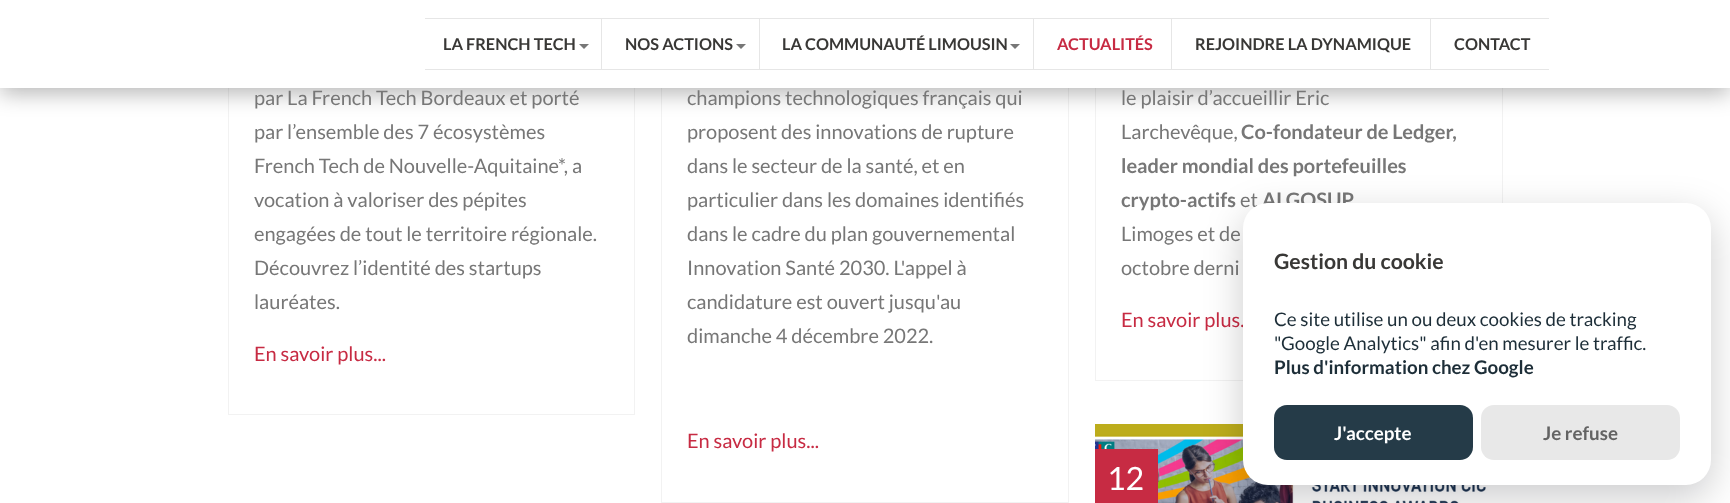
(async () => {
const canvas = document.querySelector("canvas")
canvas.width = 1730
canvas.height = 503
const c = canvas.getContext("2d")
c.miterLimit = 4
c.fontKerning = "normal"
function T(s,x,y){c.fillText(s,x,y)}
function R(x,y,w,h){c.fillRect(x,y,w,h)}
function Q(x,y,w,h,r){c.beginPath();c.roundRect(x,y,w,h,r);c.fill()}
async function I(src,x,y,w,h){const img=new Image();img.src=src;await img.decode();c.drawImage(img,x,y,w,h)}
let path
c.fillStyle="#fff"
R(0,0,1730,503)
c.strokeStyle="#f2f2f2"
c.strokeRect(228.5,-.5,406,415)
c.strokeRect(661.5,-.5,407,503)
c.strokeRect(1095.5,-.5,407,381)
c.fillStyle="#0303034d"
c.filter="blur(11px)"
c.beginPath()
c.rect(0,5,1730,88)
c.fill()
c.filter="none"
c.fillStyle="#fff"
R(0,0,1730,88)
c.fillStyle="#e6e6e6"
R(425,18,1124,1)
R(425,69,1124,1)
R(601,19,1,50)
c.font="bold 16.25px Lato"
c.fillStyle="#393836"
T("LA FRENCH TECH",443,50)
c.fillStyle="#777"
path = new Path2D("M579 44h10l-5 5z")
c.fill(path)
c.fillStyle="#e6e6e6"
R(759,19,1,50)
c.fillStyle="#393836"
T("NOS ACTIONS",625,50)
c.fillStyle="#777"
path = new Path2D("M736 44h10l-5 5z")
c.fill(path)
c.fillStyle="#e6e6e6"
R(1033,19,1,50)
c.fillStyle="#393836"
T("LA COMMUNAUTÉ LIMOUSIN",782,50)
c.fillStyle="#777"
path = new Path2D("M1010 44h10l-5 5z")
c.fill(path)
c.fillStyle="#e6e6e6"
R(1171,19,1,50)
c.fillStyle="#c72b43"
T("ACTUALITÉS",1057,50)
c.fillStyle="#e6e6e6"
R(1430,19,1,50)
c.fillStyle="#393836"
T("REJOINDRE LA DYNAMIQUE",1195,50)
T("CONTACT",1454,50)
c.font="20px Lato"
c.fillStyle="#777"
T("par La French Tech Bordeaux et porté",254,105)
T("par l’ensemble des 7 écosystèmes",254,139)
T("French Tech de Nouvelle-Aquitaine*, a",254,173)
T("vocation à valoriser des pépites",254,207)
T("engagées de tout le territoire régionale.",254,241)
T("Découvrez l’identité des startups",254,275)
T("lauréates.",254,309)
c.fillStyle="#c72b43"
T("En savoir plus...",254,361)
c.fillStyle="#777"
T("champions technologiques français qui",687,105)
T("proposent des innovations de rupture",687,139)
T("dans le secteur de la santé, et en",687,173)
T("particulier dans les domaines identifiés",687,207)
T("dans le cadre du plan gouvernemental",687,241)
T("Innovation Santé 2030. L'appel à",687,275)
T("candidature est ouvert jusqu'au",687,309)
T("dimanche 4 décembre 2022.",687,343)
c.fillStyle="#c72b43"
T("En savoir plus...",687,448)
c.fillStyle="#777"
T("le plaisir d’accueillir Eric",1121,105)
T("Larchevêque,",1121,139)
c.font="bold 20px Lato"
T("Co-fondateur de Ledger,",1241,139)
T("leader mondial des portefeuilles",1121,173)
T("crypto-actifs",1121,207)
c.font="20px Lato"
T("et",1240,207)
c.font="bold 20px Lato"
T("ALGOSUP",1262,207)
c.font="20px Lato"
T("Limoges et de",1121,241)
T("octobre derni",1121,275)
c.fillStyle="#c72b43"
T("En savoir plus.",1121,327)
await I("1.png",1095,424,408,79)
R(1095,449,63,54)
c.font="32px Lato"
c.fillStyle="#fff"
T("12",1107,490)
c.fillStyle="#02020333"
c.filter="blur(19px)"
c.beginPath()
c.roundRect(1243,215,468,283,25)
c.fill()
c.filter="none"
c.fillStyle="#fff"
Q(1243,203,468,282,25)
c.font="bold 21.25px Lato"
c.fillStyle="#393836"
T("Gestion du cookie",1274,269)
c.font="18.75px Lato"
c.fillStyle="#1d2e38"
T("Ce site utilise un ou deux cookies de tracking",1274,326)
T("\"Google Analytics\" afin d'en mesurer le traffic.",1274,350)
c.font="bold 18.75px Lato"
T("Plus d'information chez Google",1274,374)
c.fillStyle="#253b48"
Q(1274,405,199,55,13)
c.fillStyle="#fff"
T("J'accepte",1334,440)
c.fillStyle="#e8e8e8"
Q(1481,405,199,55,13)
c.fillStyle="#636363"
T("Je refuse",1543,440)
})()
